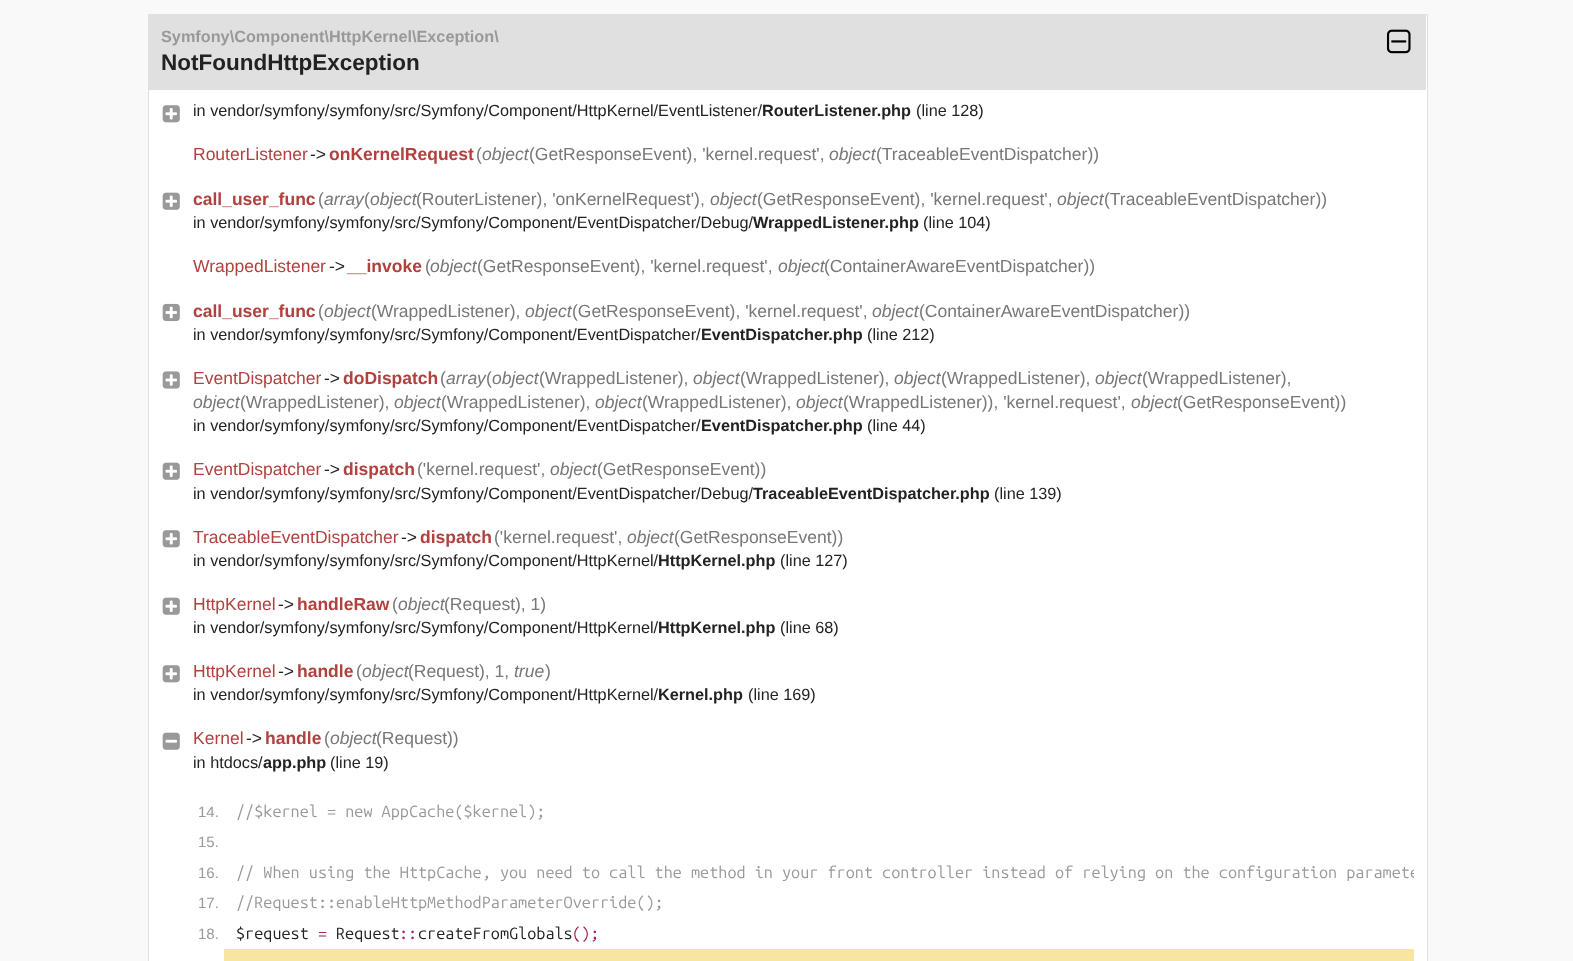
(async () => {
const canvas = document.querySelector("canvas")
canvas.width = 1573
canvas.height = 961
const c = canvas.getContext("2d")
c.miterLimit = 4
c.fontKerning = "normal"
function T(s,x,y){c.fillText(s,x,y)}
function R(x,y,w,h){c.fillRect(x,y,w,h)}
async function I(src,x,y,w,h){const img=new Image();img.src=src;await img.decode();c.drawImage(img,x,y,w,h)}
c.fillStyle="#f9f9f9"
R(0,0,1573,961)
c.fillStyle="#80808033"
c.filter="blur(0.5px)"
c.beginPath()
c.rect(148,14,1280,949)
c.fill()
c.filter="none"
c.fillStyle="#fff"
c.beginPath()
c.rect(148.5,14.5,1279,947)
c.fill()
c.strokeStyle="#e0e0e0"
c.stroke()
c.fillStyle="#e0e0e0"
R(149,15,1277,75)
c.font="bold 16.25px Liberation Sans"
c.fillStyle="#999"
T("Symfony\\Component\\HttpKernel\\Exception\\",161,42)
await I("1.png",1386,29,25,25)
c.font="bold 22.5px Liberation Sans"
c.fillStyle="#222"
T("NotFoundHttpException",161,70)
await I("2.png",162,105,18,18)
c.font="16.25px Liberation Sans"
T("in vendor/symfony/symfony/src/Symfony/Component/HttpKernel/EventListener/",193,116)
c.font="bold 16.25px Liberation Sans"
T("RouterListener.php",762,116)
c.font="16.25px Liberation Sans"
T("(line 128)",916,116)
c.font="17.5px Liberation Sans"
c.fillStyle="#b0413e"
T("RouterListener",193,160)
c.fillStyle="#222"
T("->",310,160)
c.font="bold 17.5px Liberation Sans"
c.fillStyle="#b0413e"
T("onKernelRequest",329,160)
c.font="17.5px Liberation Sans"
c.fillStyle="#777"
T("(",476,160)
c.font="italic 17.5px Liberation Sans"
T("object",482,160)
c.font="17.5px Liberation Sans"
T("(GetResponseEvent), 'kernel.request',",529,160)
c.font="italic 17.5px Liberation Sans"
T("object",829,160)
c.font="17.5px Liberation Sans"
T("(TraceableEventDispatcher))",876,160)
await I("3.png",162,192,18,18)
c.font="bold 17.5px Liberation Sans"
c.fillStyle="#b0413e"
T("call_user_func",193,205)
c.font="17.5px Liberation Sans"
c.fillStyle="#777"
T("(",318,205)
c.font="italic 17.5px Liberation Sans"
T("array",324,205)
c.font="17.5px Liberation Sans"
T("(",364,205)
c.font="italic 17.5px Liberation Sans"
T("object",370,205)
c.font="17.5px Liberation Sans"
T("(RouterListener), 'onKernelRequest'),",416,205)
c.font="italic 17.5px Liberation Sans"
T("object",710,205)
c.font="17.5px Liberation Sans"
T("(GetResponseEvent), 'kernel.request',",757,205)
c.font="italic 17.5px Liberation Sans"
T("object",1057,205)
c.font="17.5px Liberation Sans"
T("(TraceableEventDispatcher))",1104,205)
c.font="16.25px Liberation Sans"
c.fillStyle="#222"
T("in vendor/symfony/symfony/src/Symfony/Component/EventDispatcher/Debug/",193,228)
c.font="bold 16.25px Liberation Sans"
T("WrappedListener.php",753,228)
c.font="16.25px Liberation Sans"
T("(line 104)",923,228)
c.font="17.5px Liberation Sans"
c.fillStyle="#b0413e"
T("WrappedListener",193,272)
c.fillStyle="#222"
T("->",329,272)
c.font="bold 17.5px Liberation Sans"
c.fillStyle="#b0413e"
T("__invoke",347,272)
c.font="17.5px Liberation Sans"
c.fillStyle="#777"
T("(",425,272)
c.font="italic 17.5px Liberation Sans"
T("object",430,272)
c.font="17.5px Liberation Sans"
T("(GetResponseEvent), 'kernel.request',",477,272)
c.font="italic 17.5px Liberation Sans"
T("object",778,272)
c.font="17.5px Liberation Sans"
T("(ContainerAwareEventDispatcher))",824,272)
await I("4.png",162,303,18,19)
c.font="bold 17.5px Liberation Sans"
c.fillStyle="#b0413e"
T("call_user_func",193,317)
c.font="17.5px Liberation Sans"
c.fillStyle="#777"
T("(",318,317)
c.font="italic 17.5px Liberation Sans"
T("object",324,317)
c.font="17.5px Liberation Sans"
T("(WrappedListener),",371,317)
c.font="italic 17.5px Liberation Sans"
T("object",525,317)
c.font="17.5px Liberation Sans"
T("(GetResponseEvent), 'kernel.request',",572,317)
c.font="italic 17.5px Liberation Sans"
T("object",872,317)
c.font="17.5px Liberation Sans"
T("(ContainerAwareEventDispatcher))",919,317)
c.font="16.25px Liberation Sans"
c.fillStyle="#222"
T("in vendor/symfony/symfony/src/Symfony/Component/EventDispatcher/",193,340)
c.font="bold 16.25px Liberation Sans"
T("EventDispatcher.php",701,340)
c.font="16.25px Liberation Sans"
T("(line 212)",867,340)
await I("5.png",162,371,18,18)
c.font="17.5px Liberation Sans"
c.fillStyle="#b0413e"
T("EventDispatcher",193,384)
c.fillStyle="#222"
T("->",324,384)
c.font="bold 17.5px Liberation Sans"
c.fillStyle="#b0413e"
T("doDispatch",343,384)
c.font="17.5px Liberation Sans"
c.fillStyle="#777"
T("(",440,384)
c.font="italic 17.5px Liberation Sans"
T("array",446,384)
c.font="17.5px Liberation Sans"
T("(",486,384)
c.font="italic 17.5px Liberation Sans"
T("object",492,384)
c.font="17.5px Liberation Sans"
T("(WrappedListener),",539,384)
c.font="italic 17.5px Liberation Sans"
T("object",693,384)
c.font="17.5px Liberation Sans"
T("(WrappedListener),",740,384)
c.font="italic 17.5px Liberation Sans"
T("object",894,384)
c.font="17.5px Liberation Sans"
T("(WrappedListener),",941,384)
c.font="italic 17.5px Liberation Sans"
T("object",1095,384)
c.font="17.5px Liberation Sans"
T("(WrappedListener),",1142,384)
c.font="italic 17.5px Liberation Sans"
T("object",193,408)
c.font="17.5px Liberation Sans"
T("(WrappedListener),",240,408)
c.font="italic 17.5px Liberation Sans"
T("object",394,408)
c.font="17.5px Liberation Sans"
T("(WrappedListener),",441,408)
c.font="italic 17.5px Liberation Sans"
T("object",595,408)
c.font="17.5px Liberation Sans"
T("(WrappedListener),",642,408)
c.font="italic 17.5px Liberation Sans"
T("object",796,408)
c.font="17.5px Liberation Sans"
T("(WrappedListener)), 'kernel.request',",843,408)
c.font="italic 17.5px Liberation Sans"
T("object",1131,408)
c.font="17.5px Liberation Sans"
T("(GetResponseEvent))",1177,408)
c.font="16.25px Liberation Sans"
c.fillStyle="#222"
T("in vendor/symfony/symfony/src/Symfony/Component/EventDispatcher/",193,431)
c.font="bold 16.25px Liberation Sans"
T("EventDispatcher.php",701,431)
c.font="16.25px Liberation Sans"
T("(line 44)",867,431)
await I("3.png",162,462,18,18)
c.font="17.5px Liberation Sans"
c.fillStyle="#b0413e"
T("EventDispatcher",193,475)
c.fillStyle="#222"
T("->",324,475)
c.font="bold 17.5px Liberation Sans"
c.fillStyle="#b0413e"
T("dispatch",343,475)
c.font="17.5px Liberation Sans"
c.fillStyle="#777"
T("('kernel.request',",417,475)
c.font="italic 17.5px Liberation Sans"
T("object",550,475)
c.font="17.5px Liberation Sans"
T("(GetResponseEvent))",597,475)
c.font="16.25px Liberation Sans"
c.fillStyle="#222"
T("in vendor/symfony/symfony/src/Symfony/Component/EventDispatcher/Debug/",193,499)
c.font="bold 16.25px Liberation Sans"
T("TraceableEventDispatcher.php",753,499)
c.font="16.25px Liberation Sans"
T("(line 139)",994,499)
await I("2.png",162,530,18,18)
c.font="17.5px Liberation Sans"
c.fillStyle="#b0413e"
T("TraceableEventDispatcher",193,543)
c.fillStyle="#222"
T("->",401,543)
c.font="bold 17.5px Liberation Sans"
c.fillStyle="#b0413e"
T("dispatch",420,543)
c.font="17.5px Liberation Sans"
c.fillStyle="#777"
T("('kernel.request',",494,543)
c.font="italic 17.5px Liberation Sans"
T("object",627,543)
c.font="17.5px Liberation Sans"
T("(GetResponseEvent))",674,543)
c.font="16.25px Liberation Sans"
c.fillStyle="#222"
T("in vendor/symfony/symfony/src/Symfony/Component/HttpKernel/",193,566)
c.font="bold 16.25px Liberation Sans"
T("HttpKernel.php",658,566)
c.font="16.25px Liberation Sans"
T("(line 127)",780,566)
await I("3.png",162,597,18,18)
c.font="17.5px Liberation Sans"
c.fillStyle="#b0413e"
T("HttpKernel",193,610)
c.fillStyle="#222"
T("->",278,610)
c.font="bold 17.5px Liberation Sans"
c.fillStyle="#b0413e"
T("handleRaw",297,610)
c.font="17.5px Liberation Sans"
c.fillStyle="#777"
T("(",392,610)
c.font="italic 17.5px Liberation Sans"
T("object",398,610)
c.font="17.5px Liberation Sans"
T("(Request), 1)",444,610)
c.font="16.25px Liberation Sans"
c.fillStyle="#222"
T("in vendor/symfony/symfony/src/Symfony/Component/HttpKernel/",193,633)
c.font="bold 16.25px Liberation Sans"
T("HttpKernel.php",658,633)
c.font="16.25px Liberation Sans"
T("(line 68)",780,633)
await I("2.png",162,665,18,18)
c.font="17.5px Liberation Sans"
c.fillStyle="#b0413e"
T("HttpKernel",193,677)
c.fillStyle="#222"
T("->",278,677)
c.font="bold 17.5px Liberation Sans"
c.fillStyle="#b0413e"
T("handle",297,677)
c.font="17.5px Liberation Sans"
c.fillStyle="#777"
T("(",356,677)
c.font="italic 17.5px Liberation Sans"
T("object",362,677)
c.font="17.5px Liberation Sans"
T("(Request), 1,",408,677)
c.font="italic 17.5px Liberation Sans"
T("true",514,677)
c.font="17.5px Liberation Sans"
T(")",545,677)
c.font="16.25px Liberation Sans"
c.fillStyle="#222"
T("in vendor/symfony/symfony/src/Symfony/Component/HttpKernel/",193,700)
c.font="bold 16.25px Liberation Sans"
T("Kernel.php",658,700)
c.font="16.25px Liberation Sans"
T("(line 169)",748,700)
await I("6.png",162,732,18,18)
c.font="17.5px Liberation Sans"
c.fillStyle="#b0413e"
T("Kernel",193,744)
c.fillStyle="#222"
T("->",246,744)
c.font="bold 17.5px Liberation Sans"
c.fillStyle="#b0413e"
T("handle",265,744)
c.font="17.5px Liberation Sans"
c.fillStyle="#777"
T("(",324,744)
c.font="italic 17.5px Liberation Sans"
T("object",330,744)
c.font="17.5px Liberation Sans"
T("(Request))",376,744)
c.font="16.25px Liberation Sans"
c.fillStyle="#222"
T("in htdocs/",193,768)
c.font="bold 16.25px Liberation Sans"
T("app.php",263,768)
c.font="16.25px Liberation Sans"
T("(line 19)",330,768)
c.font="15px Liberation Sans"
c.fillStyle="#999"
T("14.",198,817)
c.font="16.25px Ubuntu Mono"
T("//$kernel = new AppCache($kernel);",236,817)
c.font="15px Liberation Sans"
T("15.",198,847)
T("16.",198,878)
c.save()
c.beginPath()
c.rect(161,786,1253,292)
c.clip()
c.font="16.25px Ubuntu Mono"
T("// When using the HttpCache, you need to call the method in your front controller instead of relying on the configuration paramete",236,878)
c.restore()
T("17.",198,908)
c.font="16.25px Ubuntu Mono"
T("//Request::enableHttpMethodParameterOverride();",236,908)
c.font="15px Liberation Sans"
T("18.",198,939)
c.font="16.25px Ubuntu Mono"
c.fillStyle="#222"
T("$request",236,939)
c.fillStyle="#a71d5d"
T("=",318,939)
c.fillStyle="#222"
T("Request",336,939)
c.fillStyle="#a71d5d"
T("::",399,939)
c.fillStyle="#222"
T("createFromGlobals",418,939)
c.fillStyle="#a71d5d"
T("();",572,939)
c.fillStyle="#f7e5a1"
R(224,949,1190,12)
})()
